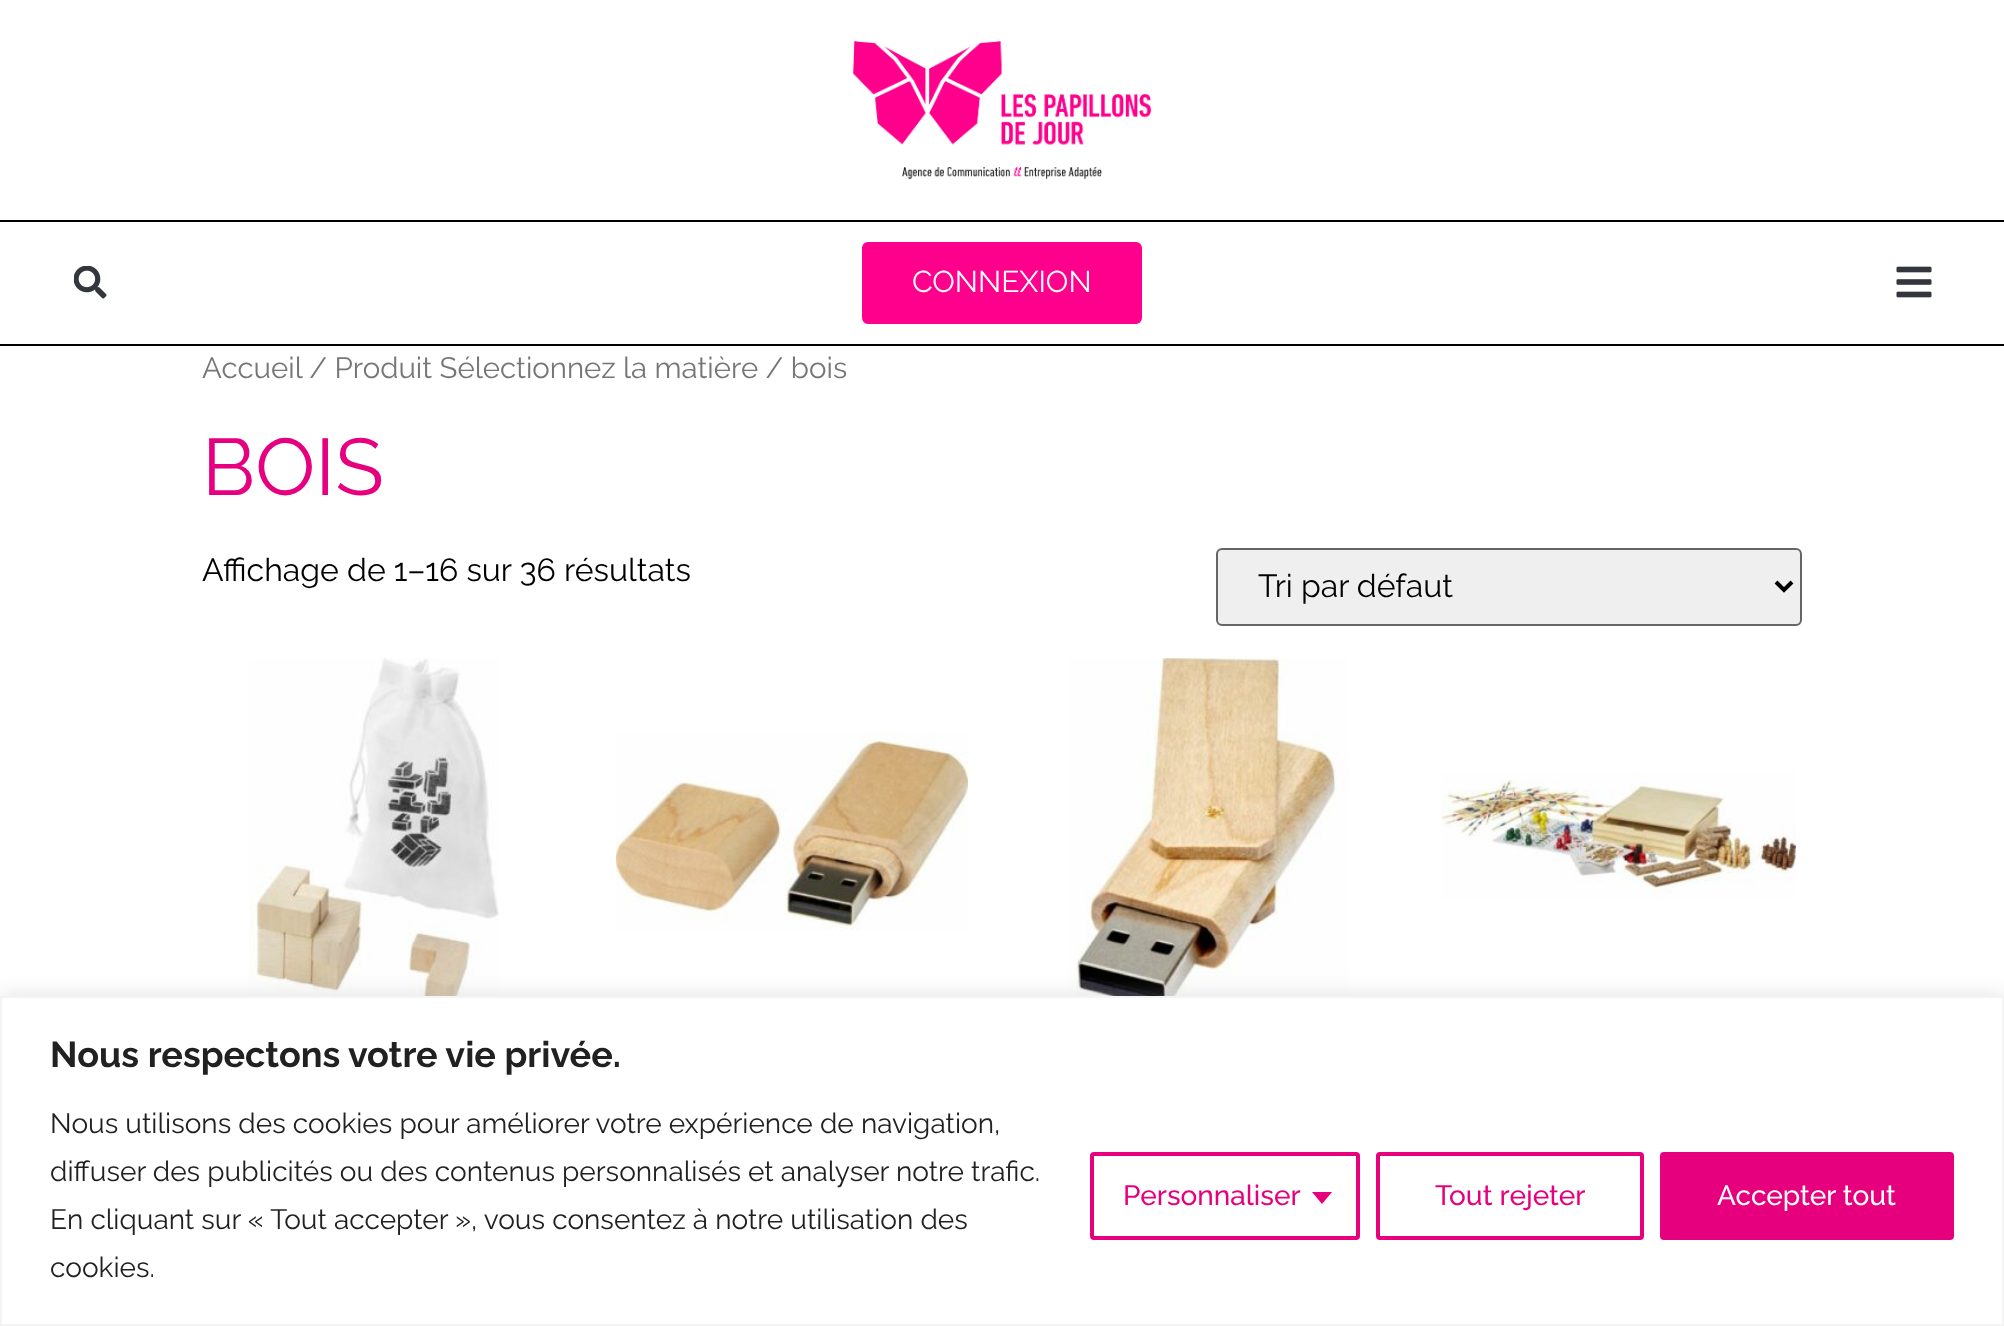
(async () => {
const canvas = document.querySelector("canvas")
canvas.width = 2004
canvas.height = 1326
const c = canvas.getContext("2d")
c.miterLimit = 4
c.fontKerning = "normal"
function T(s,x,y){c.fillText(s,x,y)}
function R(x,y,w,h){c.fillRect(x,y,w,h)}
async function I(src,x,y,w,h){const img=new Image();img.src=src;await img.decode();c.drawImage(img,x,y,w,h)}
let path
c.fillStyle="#fff"
R(0,0,2004,1326)
c.fillStyle="#000"
R(0,220,2004,2)
await I("1.png",853,41,299,139)
R(0,344,2004,2)
await I("2.png",74,266,33,33)
c.fillStyle="#ff008c"
c.beginPath()
c.roundRect(863,243,278,80,5)
c.fill()
c.strokeStyle="#ff008c"
c.lineWidth=2
c.stroke()
c.font="30px Raleway"
c.fillStyle="#fff"
T("CONNEXION",912,292)
await I("3.png",1896,266,36,32)
c.font="29.4px Raleway"
c.fillStyle="#767676"
T("Accueil / Produit Sélectionnez la matière / bois",202,378)
c.font="80px Raleway"
c.fillStyle="#e6007f"
T("BOIS",202,495)
c.font="32px Raleway"
c.fillStyle="#000"
T("Affichage de 1–16 sur 36 résultats",202,581)
c.fillStyle="#efefef"
c.beginPath()
c.roundRect(1217,549,584,76,5)
c.fill()
c.strokeStyle="#666"
c.stroke()
path = new Path2D("M1776 582l8 8l8-8")
c.strokeStyle="#000"
c.lineWidth=4
c.stroke(path)
c.fillStyle="#000"
T("Tri par défaut",1258,597)
await I("4.png",249,658,250,338)
await I("5.png",616,732,352,199)
await I("6.png",1068,658,281,338)
await I("7.png",1442,771,354,129)
c.fillStyle="#acabab4d"
c.filter="blur(10px)"
c.beginPath()
c.rect(0,994,2004,330)
c.fill()
c.filter="none"
c.fillStyle="#fff"
c.beginPath()
c.rect(1,997,2002,328)
c.fill()
c.strokeStyle="#f4f4f4"
c.lineWidth=2
c.stroke()
c.font="bold 36px Raleway"
c.fillStyle="#212121"
T("Nous respectons votre vie privée.",50,1067)
c.font="28px Raleway"
T("Nous utilisons des cookies pour améliorer votre expérience de navigation,",50,1133)
T("diffuser des publicités ou des contenus personnalisés et analyser notre trafic.",50,1181)
T("En cliquant sur « Tout accepter », vous consentez à notre utilisation des",50,1229)
T("cookies.",50,1277)
c.beginPath()
c.roundRect(1092,1154,266,84,2)
c.strokeStyle="#e6007e"
c.lineWidth=4
c.stroke()
c.font="500 28px Raleway"
c.fillStyle="#e6007f"
T("Personnaliser",1123,1205)
c.fillStyle="#e6007e"
path = new Path2D("M1312 1192h20l-10 12z")
c.fill(path)
c.beginPath()
c.roundRect(1378,1154,264,84,2)
c.stroke()
c.fillStyle="#e6007f"
T("Tout rejeter",1435,1205)
c.fillStyle="#e6007e"
c.beginPath()
c.roundRect(1662,1154,290,84,2)
c.fill()
c.stroke()
c.fillStyle="#fff"
T("Accepter tout",1717,1205)
})()
